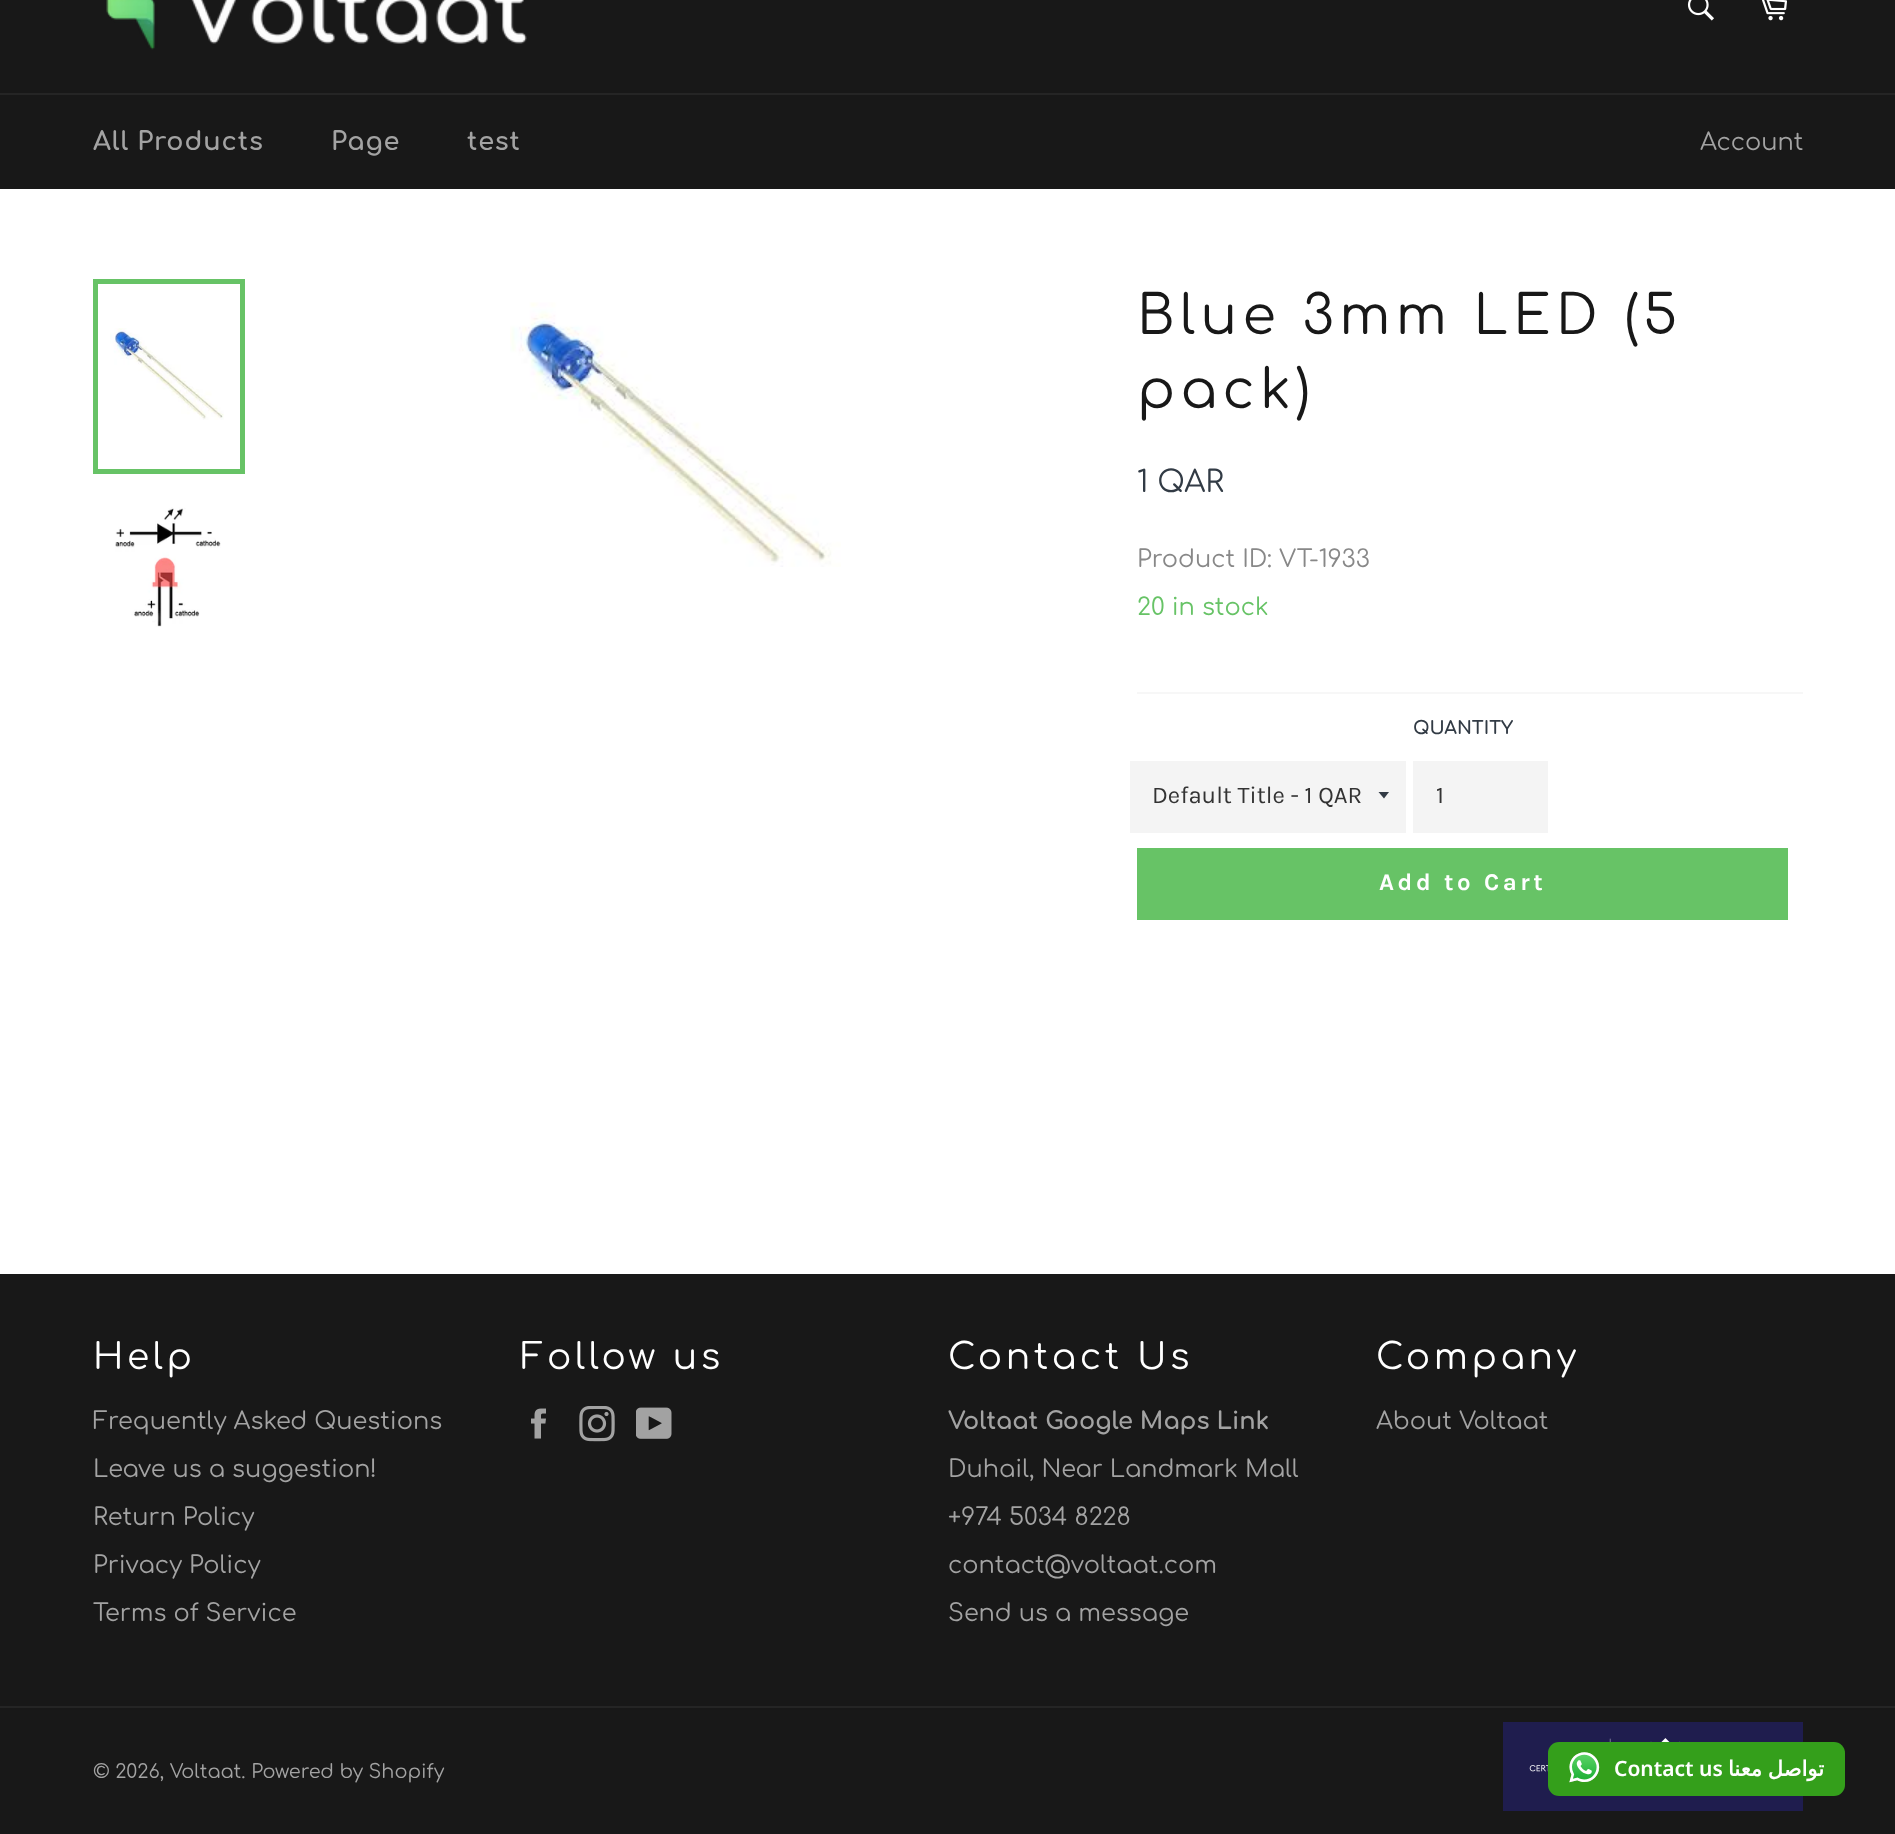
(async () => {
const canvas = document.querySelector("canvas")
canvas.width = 1895
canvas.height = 1834
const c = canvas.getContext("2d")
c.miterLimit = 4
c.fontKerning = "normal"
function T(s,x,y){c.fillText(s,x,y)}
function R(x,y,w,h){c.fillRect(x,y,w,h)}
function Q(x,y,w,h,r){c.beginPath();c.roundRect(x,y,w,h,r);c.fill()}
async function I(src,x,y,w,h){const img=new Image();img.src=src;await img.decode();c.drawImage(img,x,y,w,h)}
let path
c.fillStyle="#181818"
R(0,0,1895,1834)
await I("1.png",106,0,421,50)
await I("2.png",1687,0,27,21)
await I("3.png",1762,0,25,21)
c.fillStyle="#252525"
R(0,93,1895,2)
c.letterSpacing="0.9px"
c.font="bold 25.5px Comfortaa"
c.fillStyle="#a3a3a3"
T("All Products",93,150)
T("Page",331,150)
T("test",467,150)
c.letterSpacing="0px"
c.font="24px Comfortaa"
T("Account",1700,150)
c.fillStyle="#fff"
R(0,189,1895,1085)
await I("4.png",110,328,114,92)
c.strokeStyle="#67c366"
c.lineWidth=5
c.strokeRect(95.5,281.5,147,190)
await I("5.png",115,507,106,120)
await I("6.png",510,302,331,265)
c.letterSpacing="5.4px"
c.font="54px Comfortaa"
c.fillStyle="#181818"
T("Blue 3mm LED (5",1137,334)
T("pack)",1137,408)
c.letterSpacing="0px"
c.font="30px Comfortaa"
c.fillStyle="#323b45"
T("1 QAR",1137,492)
c.font="24px Comfortaa"
c.fillStyle="#888"
T("Product ID: VT-1933",1137,567)
c.fillStyle="#67c366"
T("20 in stock",1137,615)
c.fillStyle="#f7f7f7"
R(1137,692,666,2)
c.fillStyle="#f4f4f4"
R(1130,761,276,72)
c.fillStyle="#323b45"
path = new Path2D("M1378.5 792l5.5 6.5l5-6.5z")
c.fill(path)
c.font="24px Karla"
c.fillStyle="#333"
T("Default Title - 1 QAR",1152,803)
c.font="bold 18px Comfortaa"
c.fillStyle="#323b45"
T("QUANTITY",1413,734)
c.fillStyle="#f4f4f4"
R(1413,761,135,72)
c.font="24px Karla"
c.fillStyle="#333"
T("1",1436,803)
c.fillStyle="#67c366"
R(1137,848,651,72)
c.letterSpacing="3.6px"
c.font="bold 24px Karla"
c.fillStyle="#fff"
T("Add to Cart",1379,890)
c.font="36px Comfortaa"
T("Help",93,1369)
c.letterSpacing="0px"
c.font="24px Comfortaa"
c.fillStyle="#a3a3a3"
T("Frequently Asked Questions",93,1429)
T("Leave us a suggestion!",93,1477)
T("Return Policy",93,1525)
T("Privacy Policy",93,1573)
T("Terms of Service",93,1621)
c.letterSpacing="3.6px"
c.font="36px Comfortaa"
c.fillStyle="#fff"
T("Follow us",521,1369)
await I("7.png",531,1408,15,31)
await I("8.png",579,1406,36,36)
await I("9.png",636,1407,36,32)
T("Contact Us",948,1369)
c.letterSpacing="0px"
c.font="bold 24px Comfortaa"
c.fillStyle="#a3a3a3"
T("Voltaat Google Maps Link",948,1429)
c.font="24px Comfortaa"
T("Duhail, Near Landmark Mall",948,1477)
T("+974 5034 8228",948,1525)
T("contact@voltaat.com",948,1573)
T("Send us a message",948,1621)
c.letterSpacing="3.6px"
c.font="36px Comfortaa"
c.fillStyle="#fff"
T("Company",1376,1369)
c.letterSpacing="0px"
c.font="24px Comfortaa"
c.fillStyle="#a3a3a3"
T("About Voltaat",1376,1429)
c.fillStyle="#252525"
R(0,1706,1895,2)
c.font="19.25px Comfortaa"
c.fillStyle="#a3a3a3"
T("© 2026, Voltaat. Powered by Shopify",93,1778)
await I("10.png",1503,1722,300,89)
c.fillStyle="#349f1b"
Q(1548,1742,297,54,11)
await I("11.png",1569,1752,31,31)
c.font="600 21px Noto Sans"
c.fillStyle="#fff"
T("Contact us",1614,1776)
c.wordSpacing="-1px"
c.direction="rtl"
c.font="bold 21px DejaVu Sans"
T("تواصل معنا",1824,1776)
})()
